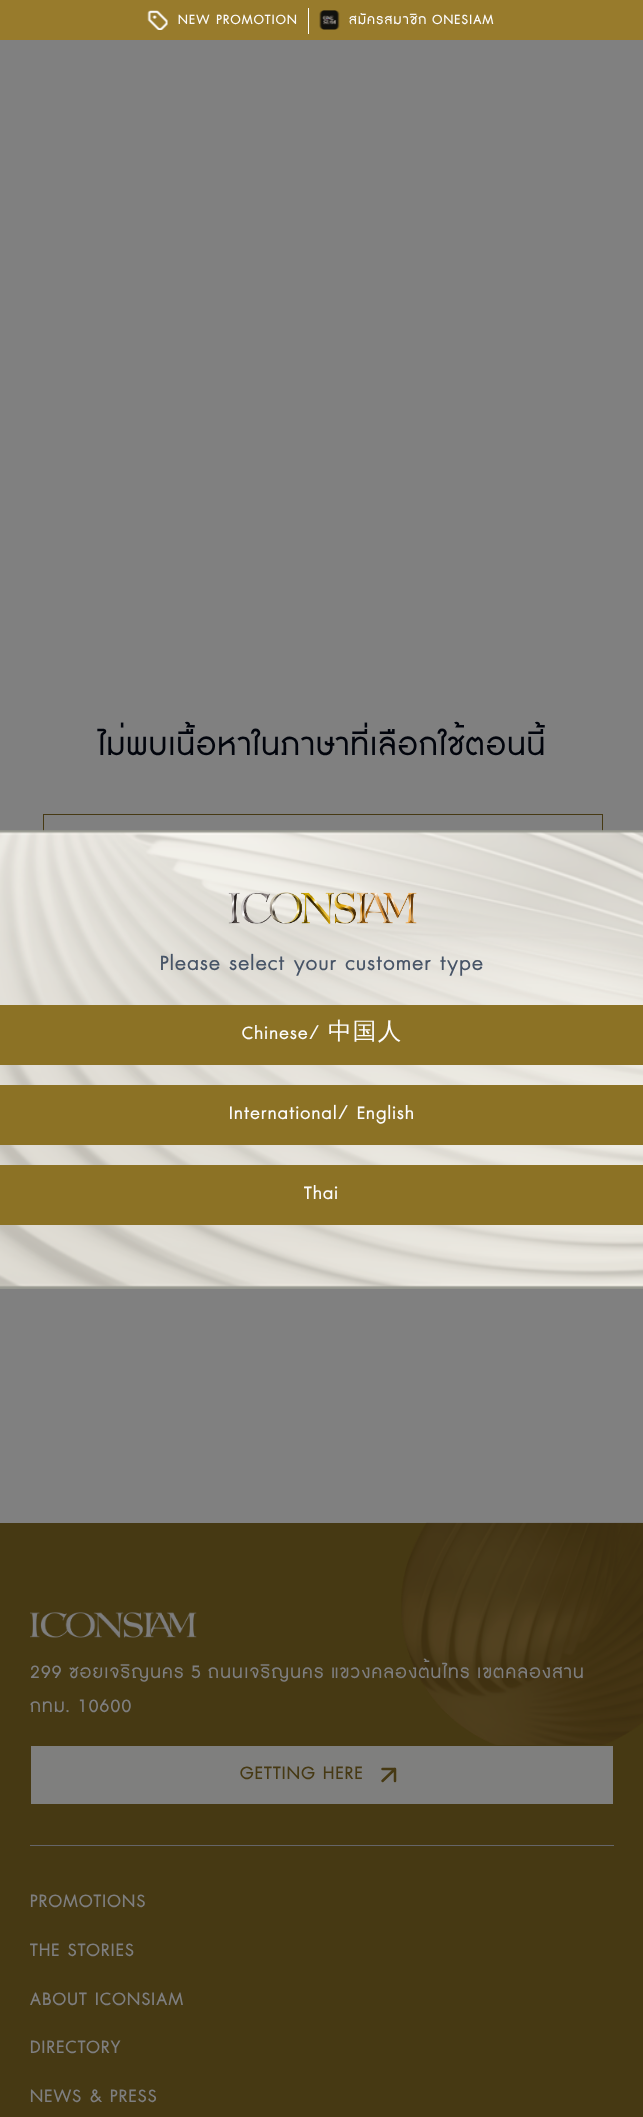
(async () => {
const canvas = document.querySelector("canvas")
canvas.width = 643
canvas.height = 2117
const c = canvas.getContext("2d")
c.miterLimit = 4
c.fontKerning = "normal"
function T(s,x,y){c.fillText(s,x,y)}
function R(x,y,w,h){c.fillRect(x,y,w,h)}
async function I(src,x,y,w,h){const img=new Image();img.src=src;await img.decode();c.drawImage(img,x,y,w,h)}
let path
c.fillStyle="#808080"
R(0,0,643,2117)
c.fillStyle="#987b2c"
R(0,0,643,40)
await I("1.png",147,10,21,20)
c.letterSpacing="1.25px"
c.font="17.5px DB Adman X"
c.fillStyle="#fcfcfd"
T("NEW PROMOTION",178,24)
c.fillStyle="#fff"
R(308,8,1,26)
await I("2.png",319,10,21,20)
c.wordSpacing="-1px"
c.fillStyle="#fcfcfd"
T("สมัครสมาชิก ONESIAM",349,24)
c.wordSpacing="0px"
c.font="40.5px DB Adman X"
c.fillStyle="#01040c"
T("ไม่พบเนื้อหาในภาษาที่เลือกใช้ตอนนี้",98,755)
c.strokeStyle="#463913"
c.strokeRect(43.5,814.5,559,59)
await I("3.png",0,829,643,460)
await I("4.png",228,892,189,32)
c.font="27px DB Adman X"
c.fillStyle="#475467"
T("Please select your customer type",160,970)
c.fillStyle="#8c7225"
R(0,1005,643,60)
c.font="23.6px DB Adman X"
c.fillStyle="#fcfcfd"
T("Chinese/",242,1039)
c.font="500 23.6px WenQuanYi Zen Hei"
T("中国人",328,1039)
c.fillStyle="#8c7225"
R(0,1085,643,60)
c.font="23.6px DB Adman X"
c.fillStyle="#fcfcfd"
T("International/ English",229,1119)
c.fillStyle="#8c7225"
R(0,1165,643,60)
c.fillStyle="#fcfcfd"
T("Thai",304,1199)
c.fillStyle="#463913"
R(0,1523,643,594)
await I("5.png",401,1522,242,223)
await I("6.png",30,1612,167,26)
c.wordSpacing="-1px"
c.fillStyle="#7e7e7f"
T("299 ซอยเจริญนคร 5 ถนนเจริญนคร แขวงคลองต้นไทร เขตคลองสาน",30,1678)
c.wordSpacing="0px"
T("กทม. 10600",30,1712)
c.fillStyle="#7f7f7e"
R(31,1746,582,58)
c.fillStyle="#463913"
T("GETTING HERE",240,1779)
path = new Path2D("M382.5 1769h12.5v12m-12.5 0l12.5-12")
c.lineWidth=2.5
c.lineCap="round"
c.lineJoin="round"
c.stroke(path)
c.fillStyle="#656568"
R(30,1845,584,1)
c.fillStyle="#7e7e7f"
T("PROMOTIONS",30,1907)
T("THE STORIES",30,1956)
T("ABOUT ICONSIAM",30,2005)
T("DIRECTORY",30,2053)
T("NEWS & PRESS",30,2102)
})()
